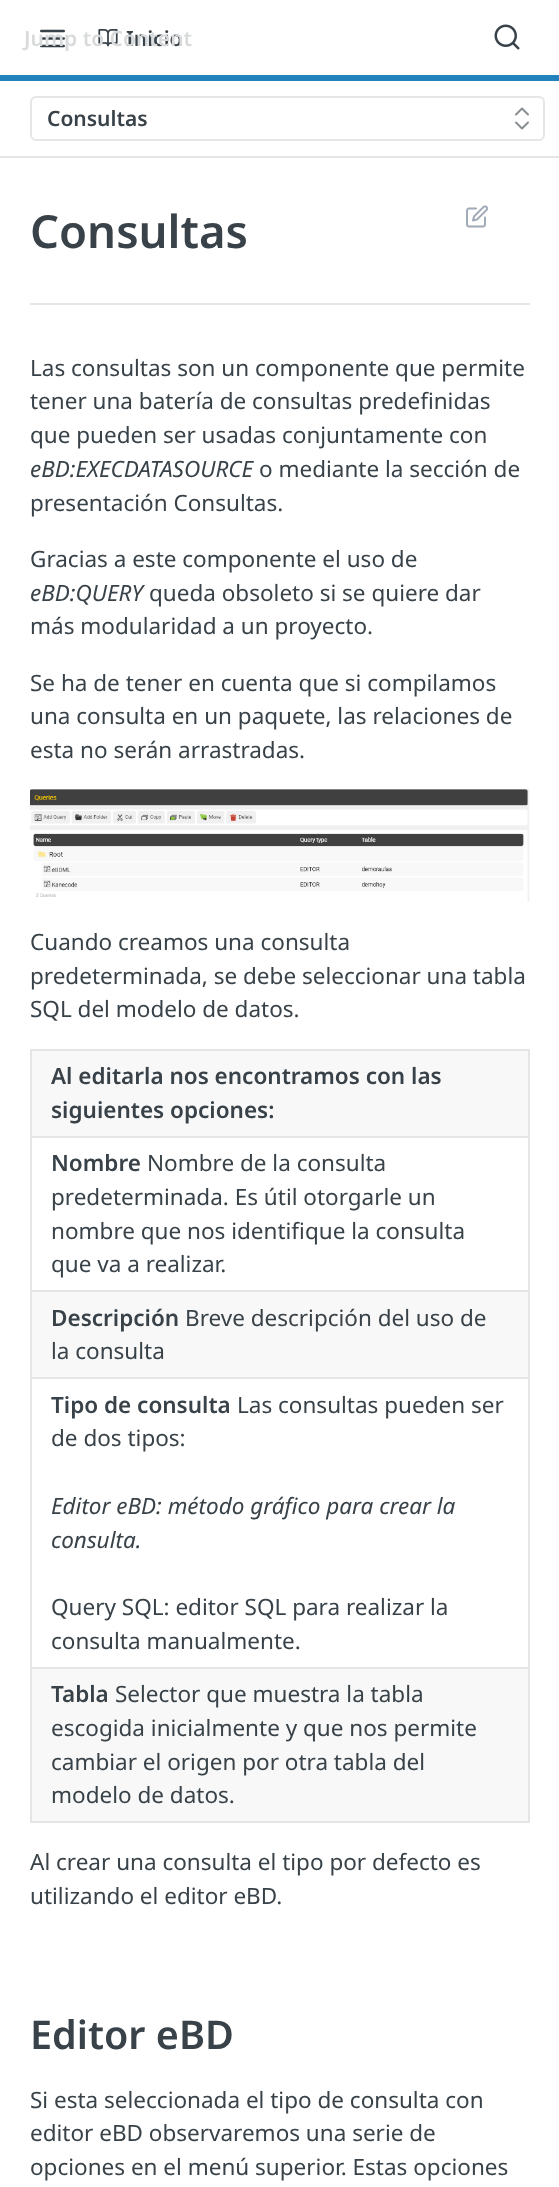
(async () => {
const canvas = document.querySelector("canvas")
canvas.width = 559
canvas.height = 2187
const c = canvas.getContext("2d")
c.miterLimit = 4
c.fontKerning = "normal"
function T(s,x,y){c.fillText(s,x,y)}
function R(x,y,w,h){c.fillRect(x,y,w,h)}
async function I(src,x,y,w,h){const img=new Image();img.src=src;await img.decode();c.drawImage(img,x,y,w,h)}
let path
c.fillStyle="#fff"
R(0,0,559,2187)
c.fillStyle="#e6e6e6"
path = new Path2D("M0 156v2h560v-156v154z")
c.fill(path)
c.fillStyle="#2282bb"
R(0,75,559,6)
await I("2.png",40,29,25,19)
await I("3.png",98,29,20,18)
c.font="600 21px Noto Sans"
c.fillStyle="#384248"
T("Inicio",126,46)
c.fillStyle="#d8dadb"
T("Jump to Content",24,46)
await I("1.png",494,24,26,26)
c.beginPath()
c.roundRect(31,97,513,43,5)
c.strokeStyle="#e6e6e6"
c.lineWidth=2
c.stroke()
c.fillStyle="#384248"
T("Consultas",47,126)
path = new Path2D("M516 122.5l6 6l6-6m0-8l-6-6l-6 6")
c.strokeStyle="#888e91"
c.lineCap="round"
c.lineJoin="round"
c.stroke(path)
c.fillStyle="#e6e6e6"
R(30,303,500,2)
c.font="600 45.5px Noto Sans"
c.fillStyle="#384248"
T("Consultas",30,248)
await I("4.png",466,205,23,23)
c.font="22.5px Noto Sans"
T("Las consultas son un componente que permite",30,376)
T("tener una batería de consultas predefinidas",30,409)
T("que pueden ser usadas conjuntamente con",30,443)
c.font="italic 22.5px Noto Sans"
T("eBD:EXECDATASOURCE",30,477)
c.font="22.5px Noto Sans"
T("o mediante la sección de",259,477)
T("presentación Consultas.",30,511)
T("Gracias a este componente el uso de",30,567)
c.font="italic 22.5px Noto Sans"
T("eBD:QUERY",30,601)
c.font="22.5px Noto Sans"
T("queda obsoleto si se quiere dar",149,601)
T("más modularidad a un proyecto.",30,634)
T("Se ha de tener en cuenta que si compilamos",30,691)
T("una consulta en un paquete, las relaciones de",30,724)
T("esta no serán arrastradas.",30,758)
await I("5.png",30,789,500,113)
T("Cuando creamos una consulta",30,950)
T("predeterminada, se debe seleccionar una tabla",30,984)
T("SQL del modelo de datos.",30,1017)
c.fillStyle="#e5e5e5"
R(30,1049,500,2)
R(528,1049,2,774)
R(30,1821,500,2)
R(30,1049,2,774)
c.fillStyle="#f8f8f8"
R(32,1051,496,85)
c.font="600 22.5px Noto Sans"
c.fillStyle="#384248"
T("Al editarla nos encontramos con las",51,1084)
T("siguientes opciones:",51,1118)
c.fillStyle="#e5e5e5"
R(30,1136,500,2)
c.fillStyle="#384248"
T("Nombre",51,1171)
c.font="22.5px Noto Sans"
T("Nombre de la consulta",147,1171)
T("predeterminada. Es útil otorgarle un",51,1205)
T("nombre que nos identifique la consulta",51,1239)
T("que va a realizar.",51,1272)
c.fillStyle="#f8f8f8"
R(32,1292,496,85)
c.fillStyle="#e5e5e5"
R(30,1290,500,2)
c.font="600 22.5px Noto Sans"
c.fillStyle="#384248"
T("Descripción",51,1326)
c.font="22.5px Noto Sans"
T("Breve descripción del uso de",185,1326)
T("la consulta",51,1359)
c.fillStyle="#e5e5e5"
R(30,1377,500,2)
c.font="600 22.5px Noto Sans"
c.fillStyle="#384248"
T("Tipo de consulta",51,1413)
c.font="22.5px Noto Sans"
T("Las consultas pueden ser",237,1413)
T("de dos tipos:",51,1446)
c.font="italic 22.5px Noto Sans"
T("Editor eBD: método gráfico para crear la",51,1514)
T("consulta.",51,1548)
c.font="22.5px Noto Sans"
T("Query SQL: editor SQL para realizar la",51,1615)
T("consulta manualmente.",51,1649)
c.fillStyle="#f8f8f8"
R(32,1669,496,152)
c.fillStyle="#e5e5e5"
R(30,1667,500,2)
c.font="600 22.5px Noto Sans"
c.fillStyle="#384248"
T("Tabla",51,1702)
c.font="22.5px Noto Sans"
T("Selector que muestra la tabla",115,1702)
T("escogida inicialmente y que nos permite",51,1736)
T("cambiar el origen por otra tabla del",51,1770)
T("modelo de datos.",51,1803)
T("Al crear una consulta el tipo por defecto es",30,1870)
T("utilizando el editor eBD.",30,1904)
c.font="600 39.5px Noto Sans"
T("Editor eBD",30,2049)
c.font="22.5px Noto Sans"
T("Si esta seleccionada el tipo de consulta con",30,2108)
T("editor eBD observaremos una serie de",30,2141)
T("opciones en el menú superior. Estas opciones",30,2175)
})()
